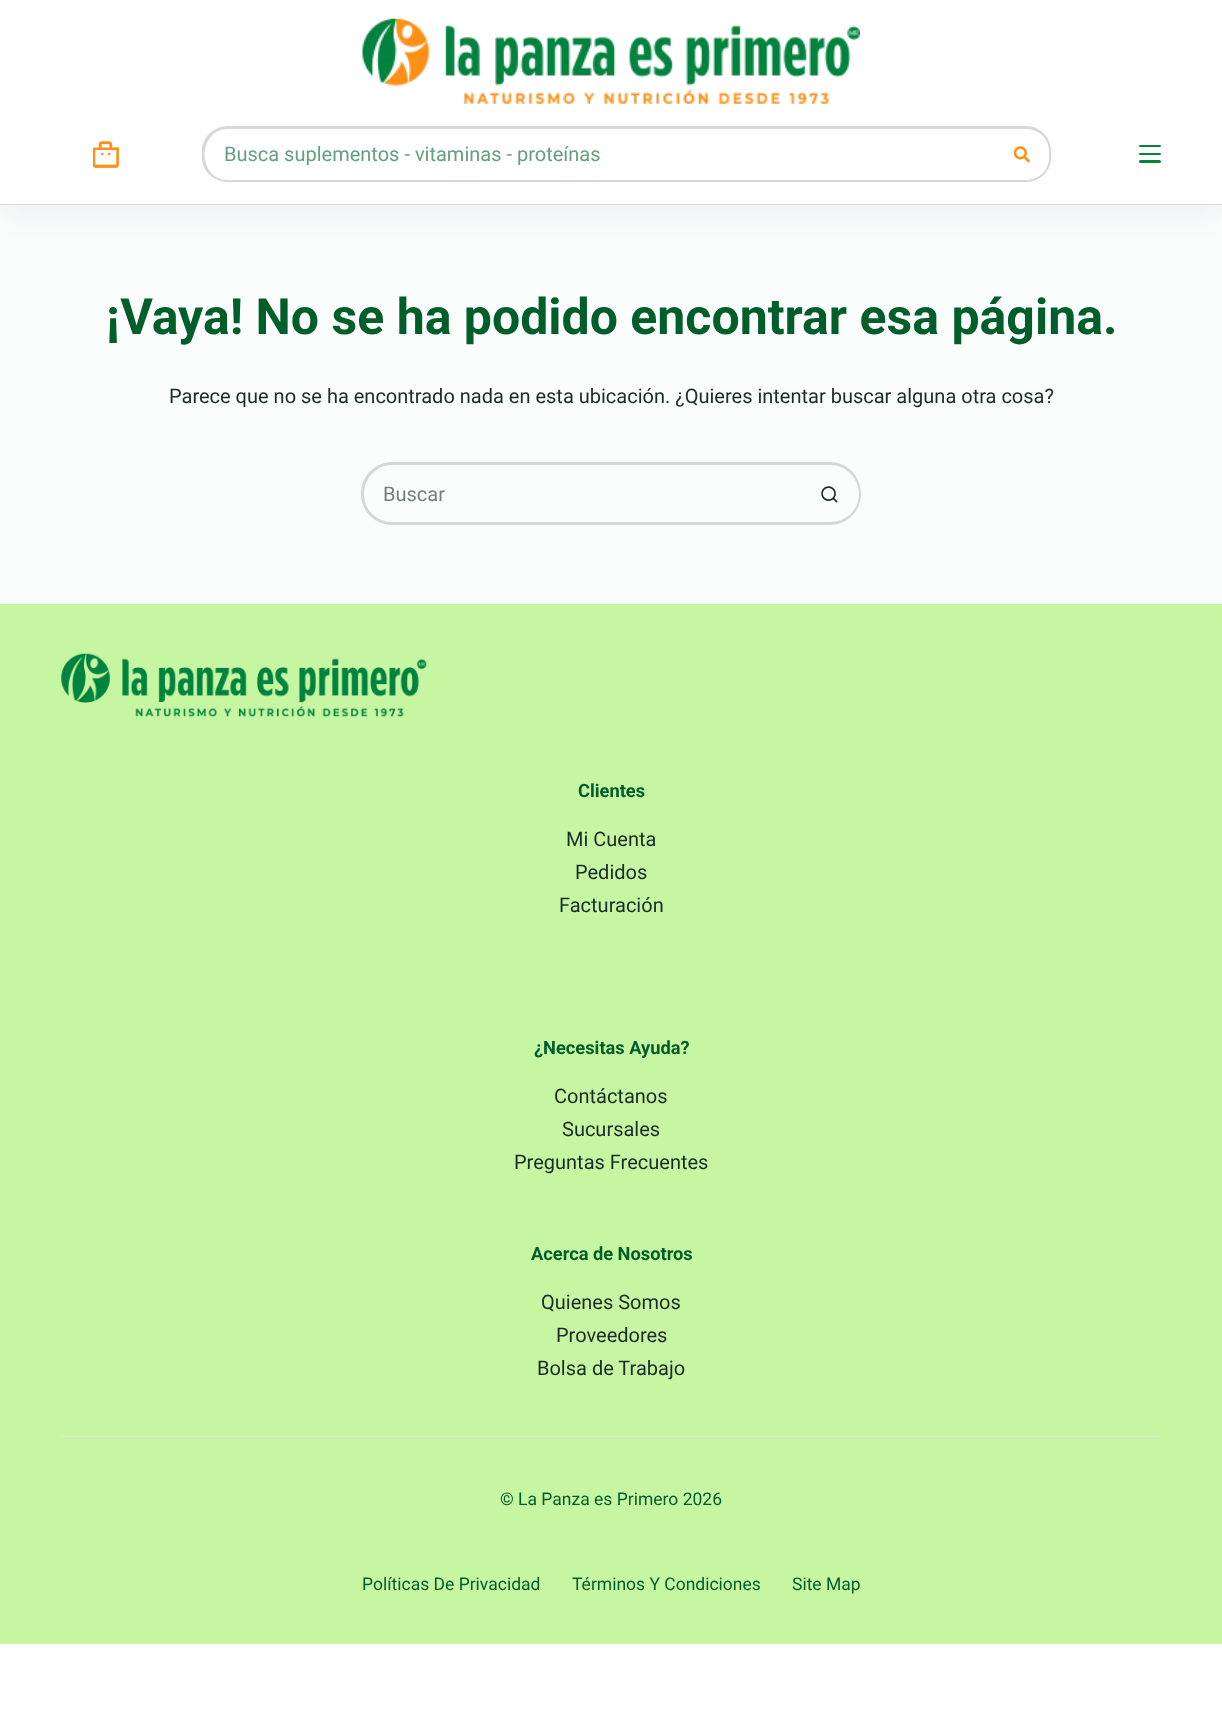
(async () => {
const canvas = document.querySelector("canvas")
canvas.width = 1222
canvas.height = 1731
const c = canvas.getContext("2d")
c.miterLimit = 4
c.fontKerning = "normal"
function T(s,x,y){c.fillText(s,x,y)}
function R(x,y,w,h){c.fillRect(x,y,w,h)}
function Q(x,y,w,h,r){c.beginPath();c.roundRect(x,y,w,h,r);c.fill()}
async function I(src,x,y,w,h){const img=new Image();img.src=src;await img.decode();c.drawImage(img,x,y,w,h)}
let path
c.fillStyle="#fbfcfc"
R(0,0,1222,1731)
c.fillStyle="#2c3e500d"
c.filter="blur(12.5px)"
c.beginPath()
c.rect(0,116,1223,102)
c.fill()
c.filter="none"
c.fillStyle="#fff"
R(0,0,1222,204)
await I("1.png",362,18,498,86)
c.fillStyle="#d6dcd5"
R(0,204,1222,1)
await I("2.png",93,141,26,27)
c.fillStyle="#d7d7d7"
path = new Path2D("M228 126h767v56h-767c-14 0-26-11-26-24v-7c0-14 12-25 26-25zm0 3h767v51h-767c-31 0-31-51 0-51z")
c.fill(path,"evenodd")
c.font="20px Roboto"
c.fillStyle="#669e7f"
T("Busca suplementos - vitaminas - proteínas",224,161)
c.fillStyle="#d7d7d7"
path = new Path2D("M995 126h31c14 0 25 11 25 25v7c0 13-11 24-25 24h-31zm0 3h31c13 0 23 10 23 22v7c0 12-10 22-23 22h-31z")
c.fill(path,"evenodd")
await I("3.png",1014,146,16,17)
c.fillStyle="#00833e"
Q(1139,145,22,2,1)
Q(1139,153,22,2,1)
Q(1139,160,22,3,1.5)
c.font="bold 50px Roboto"
c.fillStyle="#005e2a"
T("¡Vaya! No se ha podido encontrar esa página.",106,334)
c.font="20px Roboto"
c.fillStyle="#1a2c27"
T("Parece que no se ha encontrado nada en esta ubicación. ¿Quieres intentar buscar alguna otra cosa?",169,403)
c.fillStyle="#d7d7d7"
path = new Path2D("M392 462h407v63h-407c-17 0-31-14-31-31c0-18 14-32 31-32zm0 3h407v57h-407c-15 0-28-12-28-28c0-16 13-29 28-29z")
c.fill(path,"evenodd")
c.fillStyle="#747f7c"
T("Buscar",383,501)
c.fillStyle="#d7d7d7"
path = new Path2D("M799 462h31c17 0 31 14 31 32c0 17-14 31-31 31h-31zm0 3h31c16 0 29 13 29 29c0 16-13 28-29 28h-31z")
c.fill(path,"evenodd")
await I("4.png",821,486,17,17)
c.fillStyle="#c7f6a3"
R(0,604,1222,1040)
c.fillStyle="#dfe7e9"
R(61,1436,1100,1)
await I("5.png",61,653,366,64)
c.font="bold 18.25px Roboto"
c.fillStyle="#005e2a"
T("Clientes",578,797)
c.font="20px Roboto"
c.fillStyle="#1a2c27"
T("Mi Cuenta",566,846)
T("Pedidos",575,879)
T("Facturación",559,912)
c.font="bold 18.25px Roboto"
c.fillStyle="#005e2a"
T("¿Necesitas Ayuda?",534,1054)
c.font="20px Roboto"
c.fillStyle="#1a2c27"
T("Contáctanos",554,1103)
T("Sucursales",562,1136)
T("Preguntas Frecuentes",514,1169)
c.font="bold 18.25px Roboto"
c.fillStyle="#005e2a"
T("Acerca de Nosotros",531,1260)
c.font="20px Roboto"
c.fillStyle="#1a2c27"
T("Quienes Somos",541,1309)
T("Proveedores",556,1342)
T("Bolsa de Trabajo",537,1375)
c.font="17.5px Roboto"
c.fillStyle="#005e2a"
T("© La Panza es Primero 2026",500,1505)
T("Políticas De Privacidad",362,1590)
T("Términos Y Condiciones",572,1590)
T("Site Map",792,1590)
c.fillStyle="#fff"
R(0,1644,1222,87)
})()
